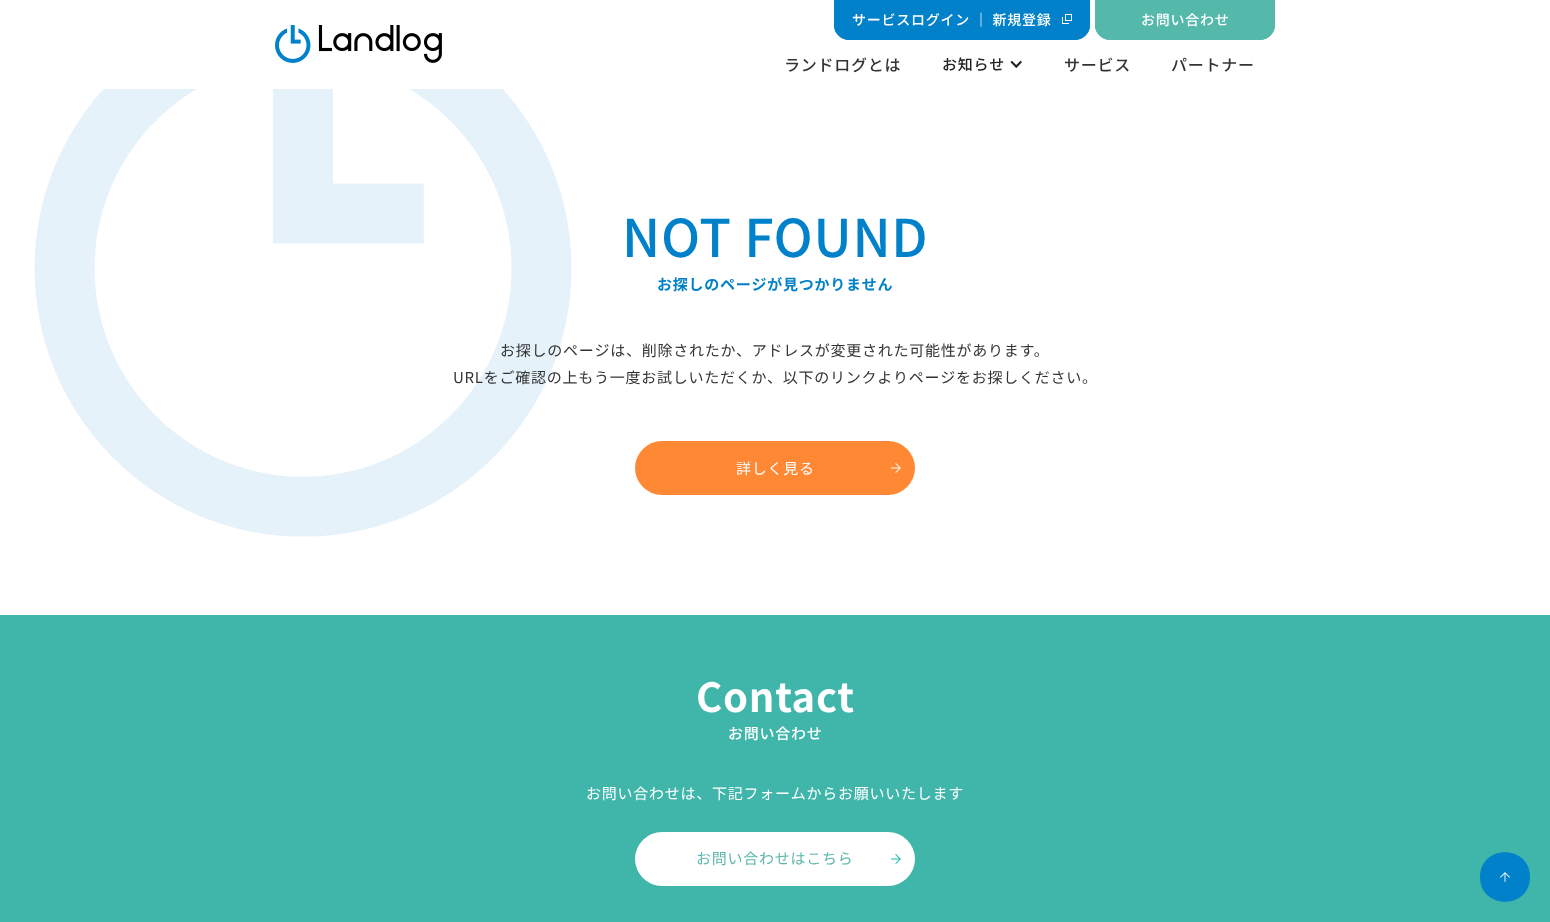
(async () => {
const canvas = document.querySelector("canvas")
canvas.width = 1550
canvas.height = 922
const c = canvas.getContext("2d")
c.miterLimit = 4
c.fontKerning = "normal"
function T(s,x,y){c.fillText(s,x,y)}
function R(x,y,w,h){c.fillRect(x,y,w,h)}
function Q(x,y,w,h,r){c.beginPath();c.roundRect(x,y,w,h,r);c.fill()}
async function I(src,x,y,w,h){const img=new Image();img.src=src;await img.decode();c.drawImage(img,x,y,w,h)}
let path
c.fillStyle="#fff"
R(0,0,1550,922)
await I("1.png",34,89,538,448)
await I("2.png",275,25,167,38)
c.fillStyle="#0081ca"
c.beginPath()
c.roundRect(834,0,256,40,[0,0,15,15])
c.fill()
path = new Path2D("M834 0h256v25c0 8-7 15-15 15h-226c-8 0-15-7-15-15zm3 0h250v25c0 7-5 12-12 12h-226c-7 0-12-5-12-12z")
c.fill(path,"evenodd")
c.letterSpacing="0.75px"
c.font="500 14px Noto Sans JP"
c.fillStyle="#fff"
T("サービスログイン ｜ 新規登録",852,25)
await I("3.png",1062,14,10,10)
c.fillStyle="#54b8aa"
c.beginPath()
c.roundRect(1095,0,180,40,[0,0,15,15])
c.fill()
path = new Path2D("M1095 0h180v25c0 8-7 15-15 15h-150c-8 0-15-7-15-15zm3 0h174v25c0 7-5 12-12 12h-150c-7 0-12-5-12-12z")
c.fill(path,"evenodd")
c.fillStyle="#fff"
T("お問い合わせ",1141,25)
c.font="500 16px Noto Sans JP"
c.fillStyle="#333"
T("ランドログとは",784,71)
c.font="500 15px Noto Sans JP"
c.fillStyle="#222"
T("お知らせ",942,70)
await I("4.png",1010,60,12,9)
c.font="500 16px Noto Sans JP"
c.fillStyle="#333"
T("サービス",1064,71)
T("パートナー",1171,71)
c.font="500 52px Noto Sans JP"
c.fillStyle="#0081ca"
T("NOT FOUND",622,257)
c.font="bold 15px Noto Sans JP"
T("お探しのページが見つかりません",657,290)
c.font="15px Noto Sans JP"
c.fillStyle="#333"
T("お探しのページは、削除されたか、アドレスが変更された可能性があります。",500,356)
T("URLをご確認の上もう一度お試しいただくか、以下のリンクよりページをお探しください。",453,383)
c.fillStyle="#ff8835"
Q(635,441,280,54,27)
await I("5.png",891,463,10,10)
c.fillStyle="#fff"
T("詳しく見る",736,474)
c.fillStyle="#40b6aa"
R(0,615,1550,307)
c.font="bold 40px Noto Sans JP"
c.fillStyle="#fff"
T("Contact",696,712)
c.font="500 15px Noto Sans JP"
T("お問い合わせ",728,739)
c.font="15px Noto Sans JP"
T("お問い合わせは、下記フォームからお願いいたします",586,799)
Q(635,832,280,54,27)
await I("6.png",891,854,10,10)
c.fillStyle="#5db7aa"
T("お問い合わせはこちら",696,864)
c.fillStyle="#0081ca"
path = new Path2D("M1480 877c0-33 50-33 50 0c0 33-50 33-50 0z")
c.fill(path)
await I("7.png",1500,872,10,10)
})()
